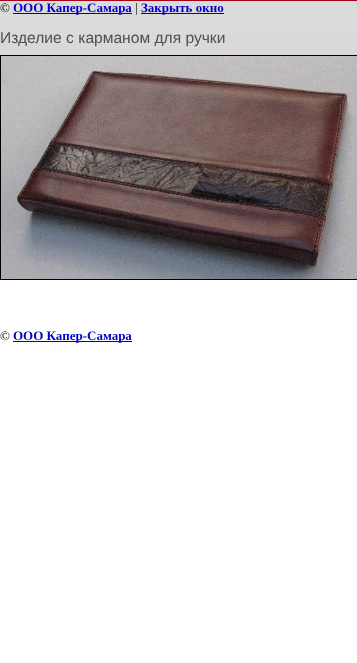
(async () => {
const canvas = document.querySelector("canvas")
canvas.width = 357
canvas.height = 663
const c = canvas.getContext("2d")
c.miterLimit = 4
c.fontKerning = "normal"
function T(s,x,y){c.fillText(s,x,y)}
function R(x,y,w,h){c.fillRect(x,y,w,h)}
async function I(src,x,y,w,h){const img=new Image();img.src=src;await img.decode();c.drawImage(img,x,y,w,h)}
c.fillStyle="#fff"
R(0,0,357,663)
await I("1.png",0,0,357,55)
c.font="13px Liberation Serif"
c.fillStyle="#000"
T("©",0,12)
c.fillStyle="#00c"
R(13,13,119,1)
c.font="bold 13px Liberation Serif"
T("ООО Капер-Самара",13,12)
c.font="13px Liberation Serif"
c.fillStyle="#000"
T("|",135,12)
c.fillStyle="#00c"
R(141,13,83,1)
c.font="bold 13px Liberation Serif"
T("Закрыть окно",141,12)
c.font="15.6px Liberation Sans"
c.fillStyle="#524e4b"
T("Изделие с карманом для ручки",0,43)
c.strokeStyle="#000"
c.strokeRect(.5,55.5,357,224)
await I("2.png",1,56,356,223)
c.font="13px Liberation Serif"
c.fillStyle="#000"
T("©",0,340)
c.fillStyle="#00c"
R(13,341,119,1)
c.font="bold 13px Liberation Serif"
T("ООО Капер-Самара",13,340)
})()
